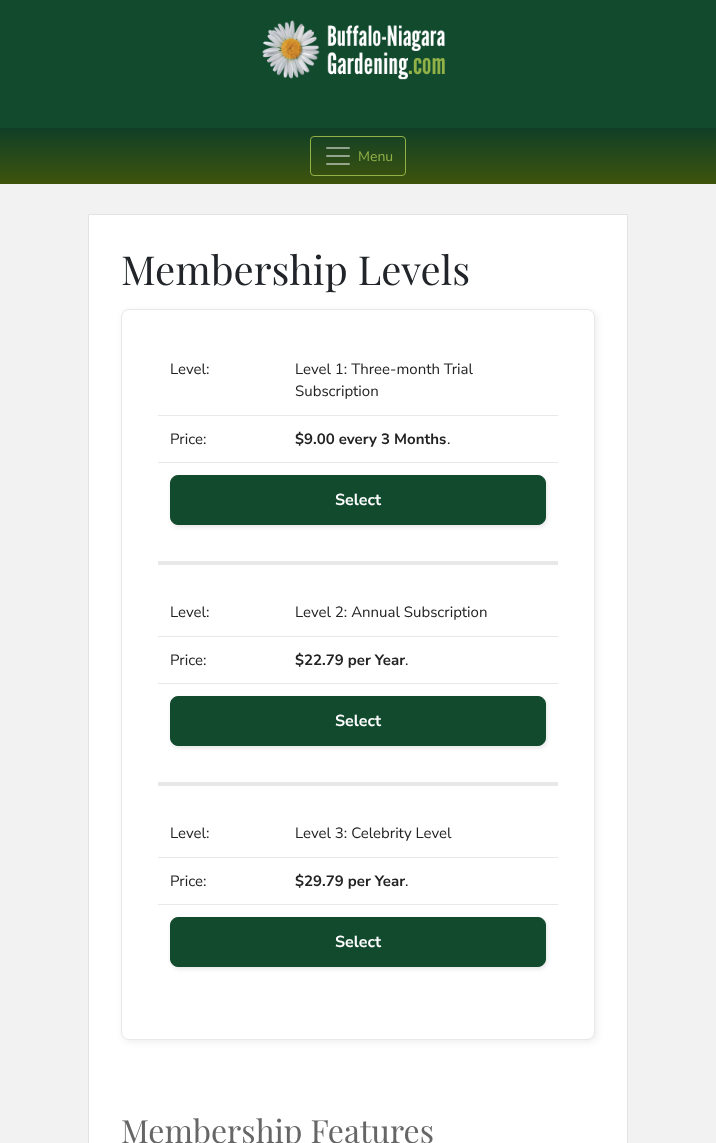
(async () => {
const canvas = document.querySelector("canvas")
canvas.width = 716
canvas.height = 1143
const c = canvas.getContext("2d")
c.miterLimit = 4
c.fontKerning = "normal"
function T(s,x,y){c.fillText(s,x,y)}
function R(x,y,w,h){c.fillRect(x,y,w,h)}
async function I(src,x,y,w,h){const img=new Image();img.src=src;await img.decode();c.drawImage(img,x,y,w,h)}
let gradient
c.fillStyle="#f2f2f2"
R(0,0,716,1143)
c.fillStyle="#124a2e"
R(0,0,716,128)
await I("1.png",262,20,183,60)
gradient = c.createLinearGradient(358,184,358,128)
gradient.addColorStop(0,"#3e540c")
gradient.addColorStop(1,"#103f27")
c.fillStyle = gradient
R(0,128,716,56)
c.beginPath()
c.roundRect(310.5,136.5,95,39,3.5)
c.strokeStyle="#92b248"
c.stroke()
await I("2.png",326,147,24,18)
c.font="14px Nunito Sans"
c.fillStyle="#92b248"
T("Menu",358,161)
c.fillStyle="#fff"
c.beginPath()
c.rect(88.5,214.5,539,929)
c.fill()
c.strokeStyle="#e3e3e3"
c.stroke()
c.font="40px Playfair Display"
c.fillStyle="#212529"
T("Membership Levels",121,285)
c.fillStyle="#00000012"
c.filter="blur(3.5px)"
c.beginPath()
c.roundRect(123,311,474,731,8)
c.fill()
c.filter="none"
c.fillStyle="#fff"
c.beginPath()
c.roundRect(121.5,309.5,473,730,7.5)
c.fill()
c.strokeStyle="#e8e8e8"
c.stroke()
c.font="15px Nunito Sans"
c.fillStyle="#222"
T("Level:",170,374)
T("Level 1: Three-month Trial",295,374)
T("Subscription",295,396)
c.fillStyle="#e8e8e8"
R(158,415,400,1)
c.fillStyle="#222"
T("Price:",170,444)
c.font="bold 15px Nunito Sans"
T("$9.00 every 3 Months",295,444)
c.font="15px Nunito Sans"
T(".",447,444)
c.fillStyle="#e8e8e8"
R(158,462,400,1)
c.fillStyle="#0000001a"
c.filter="blur(2px)"
c.beginPath()
c.roundRect(171,477,376,50,8)
c.fill()
c.filter="none"
c.fillStyle="#124a2e"
c.beginPath()
c.roundRect(170.5,475.5,375,49,7.5)
c.fill()
c.strokeStyle="#124a2e"
c.stroke()
c.font="bold 16px Nunito Sans"
c.fillStyle="#fff"
T("Select",335,505)
c.fillStyle="#e8e8e8"
R(158,561,400,4)
c.font="15px Nunito Sans"
c.fillStyle="#222"
T("Level:",170,617)
T("Level 2: Annual Subscription",295,617)
c.fillStyle="#e8e8e8"
R(158,636,400,1)
c.fillStyle="#222"
T("Price:",170,665)
c.font="bold 15px Nunito Sans"
T("$22.79 per Year",295,665)
c.font="15px Nunito Sans"
T(".",405,665)
c.fillStyle="#e8e8e8"
R(158,683,400,1)
c.fillStyle="#0000001a"
c.filter="blur(2px)"
c.beginPath()
c.roundRect(171,698,376,50,8)
c.fill()
c.filter="none"
c.fillStyle="#124a2e"
c.beginPath()
c.roundRect(170.5,696.5,375,49,7.5)
c.fill()
c.stroke()
c.font="bold 16px Nunito Sans"
c.fillStyle="#fff"
T("Select",335,726)
c.fillStyle="#e8e8e8"
R(158,782,400,4)
c.font="15px Nunito Sans"
c.fillStyle="#222"
T("Level:",170,838)
T("Level 3: Celebrity Level",295,838)
c.fillStyle="#e8e8e8"
R(158,857,400,1)
c.fillStyle="#222"
T("Price:",170,886)
c.font="bold 15px Nunito Sans"
T("$29.79 per Year",295,886)
c.font="15px Nunito Sans"
T(".",405,886)
c.fillStyle="#e8e8e8"
R(158,904,400,1)
c.fillStyle="#0000001a"
c.filter="blur(2px)"
c.beginPath()
c.roundRect(171,919,376,50,8)
c.fill()
c.filter="none"
c.fillStyle="#124a2e"
c.beginPath()
c.roundRect(170.5,917.5,375,49,7.5)
c.fill()
c.stroke()
c.font="bold 16px Nunito Sans"
c.fillStyle="#fff"
T("Select",335,947)
c.font="32px Playfair Display"
c.fillStyle="#666"
T("Membership Features",121,1143)
})()
